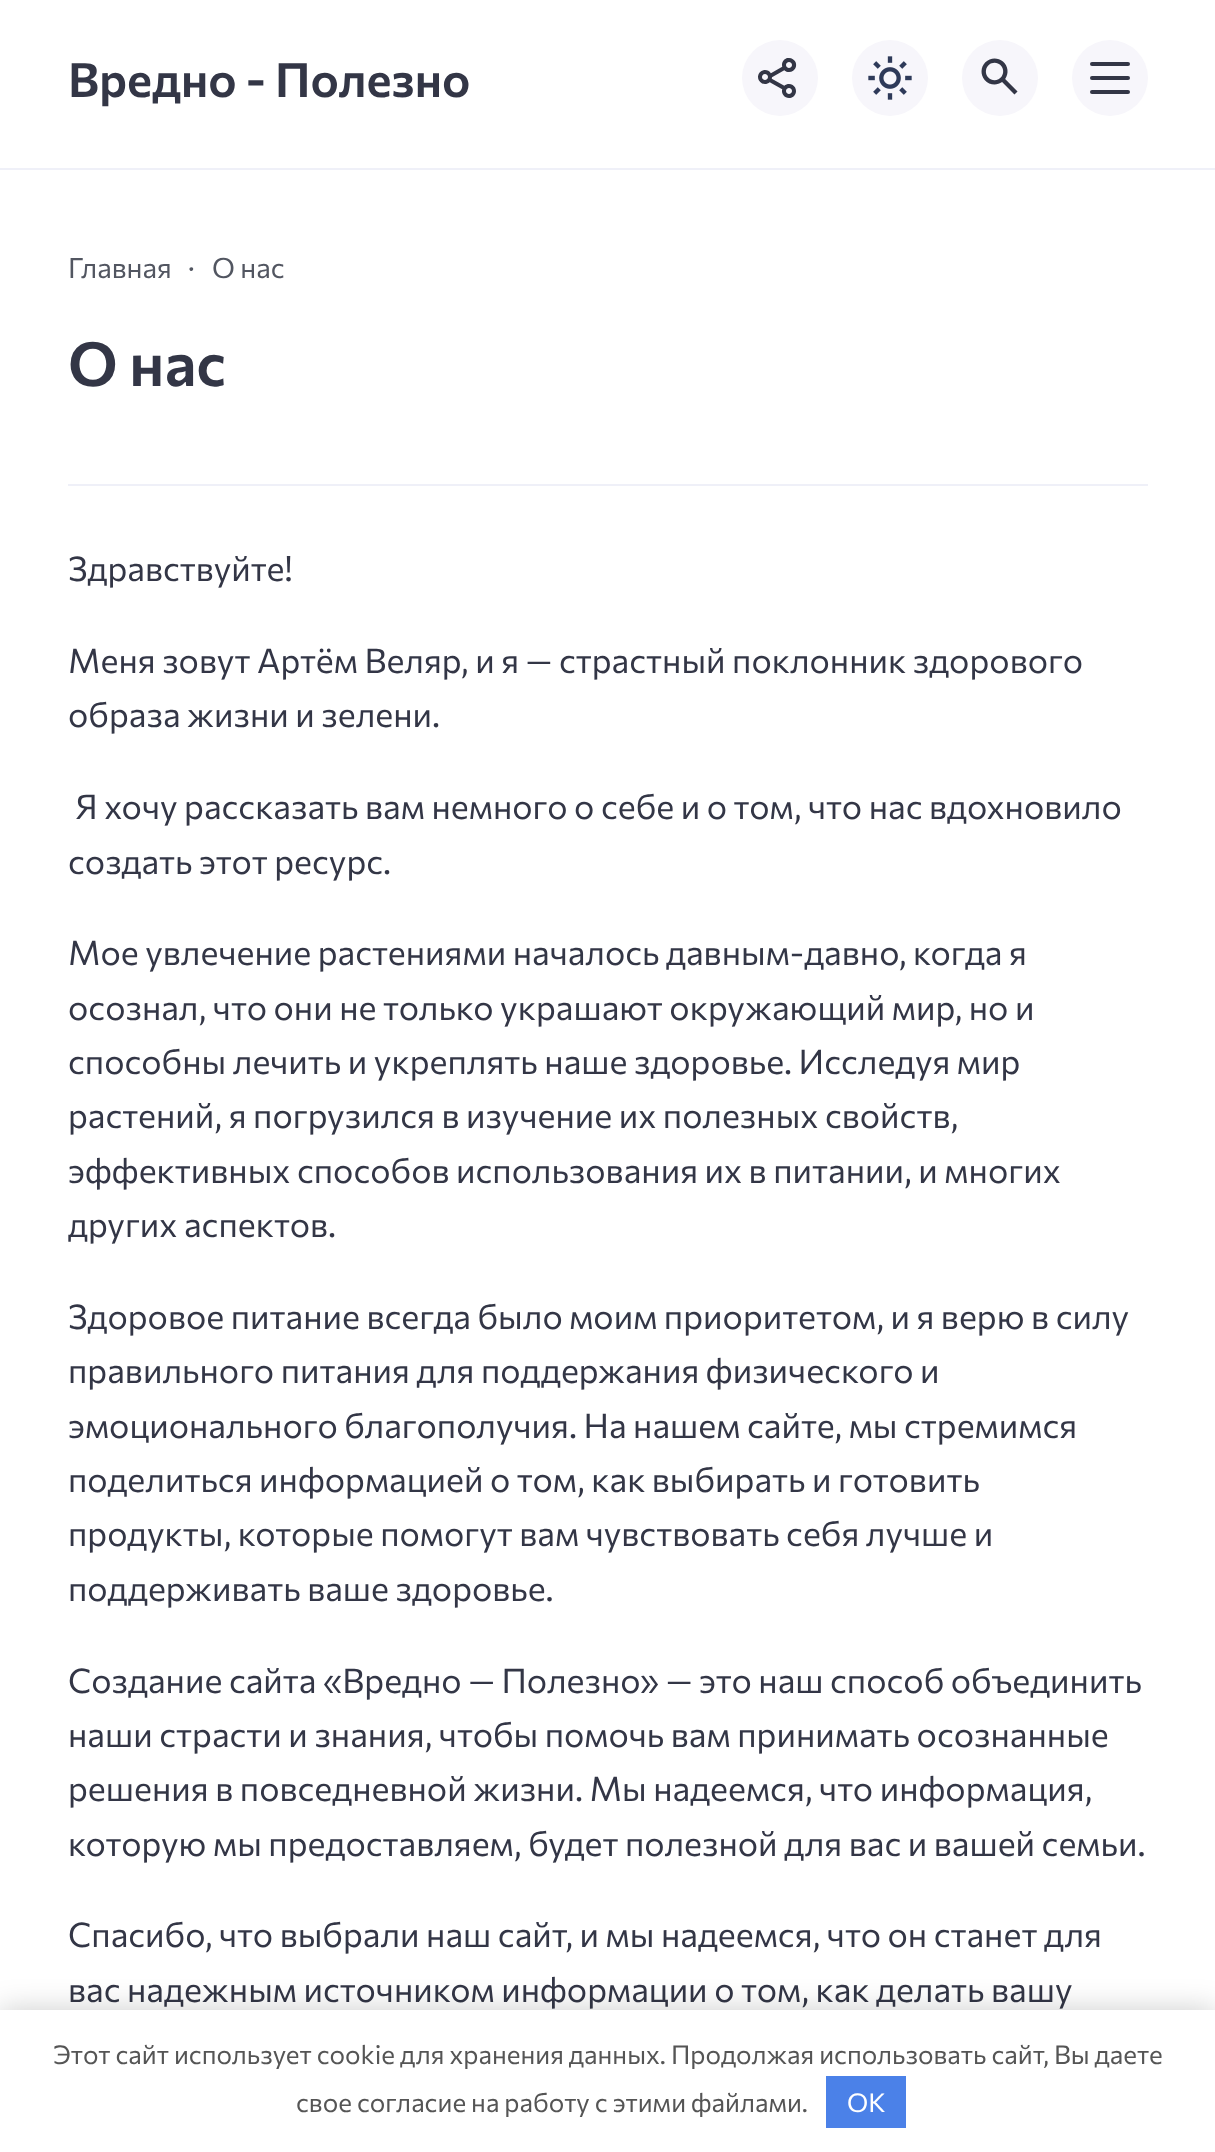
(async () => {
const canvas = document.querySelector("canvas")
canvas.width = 1215
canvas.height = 2152
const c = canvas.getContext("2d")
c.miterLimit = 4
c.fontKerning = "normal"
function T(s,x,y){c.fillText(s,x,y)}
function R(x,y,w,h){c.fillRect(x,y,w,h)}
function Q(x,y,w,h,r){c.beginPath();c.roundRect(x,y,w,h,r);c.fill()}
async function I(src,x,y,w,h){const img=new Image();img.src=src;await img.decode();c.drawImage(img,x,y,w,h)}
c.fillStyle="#fff"
R(0,0,1215,2152)
c.fillStyle="#eff0f8"
R(0,168,1215,2)
c.font="600 47.5px Commissioner"
c.fillStyle="#333646"
T("Вредно - Полезно",68,97)
c.fillStyle="#f7f6fb"
c.beginPath()
c.arc(780,78,38,0,7)
c.fill()
await I("1.png",758,58,39,40)
c.beginPath()
c.arc(890,78,38,0,7)
c.fill()
await I("2.png",868,56,44,44)
c.beginPath()
c.arc(1000,78,38,0,7)
c.fill()
await I("3.png",981,58,37,37)
c.beginPath()
c.arc(1110,78,38,0,7)
c.fill()
c.fillStyle="#333646"
Q(1090,76,40,4,2)
Q(1090,62,40,4,2)
Q(1090,90,40,4,2)
c.fillStyle="#eff0f8"
R(68,484,1080,2)
c.font="28px Commissioner"
c.fillStyle="#525661"
T("Главная",68,278)
T("·",188,278)
T("О нас",212,278)
c.font="600 61px Commissioner"
c.fillStyle="#333646"
T("О нас",68,386)
c.font="34px Commissioner"
T("Здравствуйте!",68,581)
T("Меня зовут Артём Веляр, и я — страстный поклонник здорового",68,673)
T("образа жизни и зелени.",68,727)
T("Я хочу рассказать вам немного о себе и о том, что нас вдохновило",75,819)
T("создать этот ресурс.",68,874)
T("Мое увлечение растениями началось давным-давно, когда я",68,965)
T("осознал, что они не только украшают окружающий мир, но и",68,1020)
T("способны лечить и укреплять наше здоровье. Исследуя мир",68,1074)
T("растений, я погрузился в изучение их полезных свойств,",68,1128)
T("эффективных способов использования их в питании, и многих",68,1183)
T("других аспектов.",68,1237)
T("Здоровое питание всегда было моим приоритетом, и я верю в силу",68,1329)
T("правильного питания для поддержания физического и",68,1383)
T("эмоционального благополучия. На нашем сайте, мы стремимся",68,1438)
T("поделиться информацией о том, как выбирать и готовить",68,1492)
T("продукты, которые помогут вам чувствовать себя лучше и",68,1546)
T("поддерживать ваше здоровье.",68,1601)
T("Создание сайта «Вредно — Полезно» — это наш способ объединить",68,1693)
T("наши страсти и знания, чтобы помочь вам принимать осознанные",68,1747)
T("решения в повседневной жизни. Мы надеемся, что информация,",68,1801)
T("которую мы предоставляем, будет полезной для вас и вашей семьи.",68,1856)
T("Спасибо, что выбрали наш сайт, и мы надеемся, что он станет для",68,1947)
T("вас надежным источником информации о том, как делать вашу",68,2002)
c.fillStyle="#00000033"
c.filter="blur(15px)"
c.beginPath()
c.rect(0,2010,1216,142)
c.fill()
c.filter="none"
c.fillStyle="#fff"
R(0,2010,1215,142)
c.font="26px Commissioner"
c.fillStyle="#555"
T("Этот сайт использует cookie для хранения данных. Продолжая использовать сайт, Вы даете",53,2064)
T("свое согласие на работу с этими файлами.",296,2112)
c.fillStyle="#4b81e8"
R(826,2076,80,52)
c.fillStyle="#fff"
T("OK",847,2112)
})()
